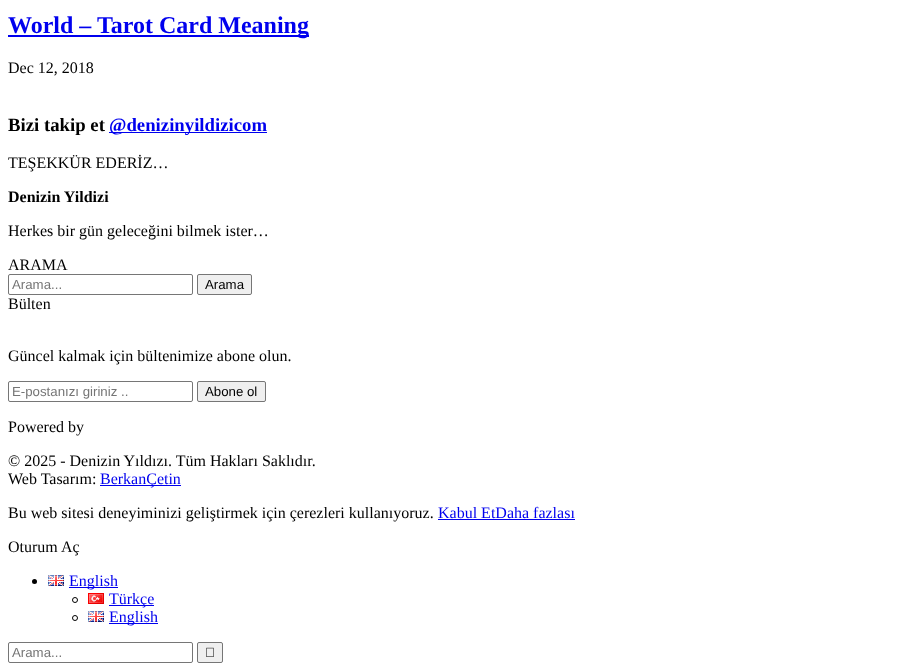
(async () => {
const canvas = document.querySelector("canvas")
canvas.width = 905
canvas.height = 671
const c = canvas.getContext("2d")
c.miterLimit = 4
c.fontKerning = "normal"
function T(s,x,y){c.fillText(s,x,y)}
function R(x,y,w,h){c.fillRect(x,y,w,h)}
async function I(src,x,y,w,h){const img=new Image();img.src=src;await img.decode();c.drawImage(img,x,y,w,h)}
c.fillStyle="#fff"
R(0,0,905,671)
c.fillStyle="#00e"
R(8,35,301,2)
c.font="bold 24px Liberation Serif"
T("World – Tarot Card Meaning",8,33)
c.font="16px Liberation Serif"
c.fillStyle="#000"
T("Dec 12, 2018",8,73)
c.font="bold 18.75px Liberation Serif"
T("Bizi takip et",8,131)
c.fillStyle="#00e"
R(109,132,158,1)
T("@denizinyildizicom",109,131)
c.font="16px Liberation Serif"
c.fillStyle="#000"
T("TEŞEKKÜR EDERİZ…",8,168)
c.font="bold 16px Liberation Serif"
T("Denizin Yildizi",8,202)
c.font="16px Liberation Serif"
T("Herkes bir gün geleceğini bilmek ister…",8,236)
T("ARAMA",8,270)
c.beginPath()
c.roundRect(8.5,274.5,184,20,1.5)
c.strokeStyle="#767676"
c.stroke()
c.font="13.25px Liberation Sans"
c.fillStyle="#757575"
T("Arama...",12,289)
c.fillStyle="#efefef"
c.beginPath()
c.roundRect(197.5,274.5,54,20,1.5)
c.fill()
c.stroke()
c.fillStyle="#000"
T("Arama",205,289)
c.font="16px Liberation Serif"
T("Bülten",8,309)
T("Güncel kalmak için bültenimize abone olun.",8,361)
c.beginPath()
c.roundRect(8.5,381.5,184,20,1.5)
c.stroke()
c.font="13.25px Liberation Sans"
c.fillStyle="#757575"
T("E-postanızı giriniz ..",12,396)
c.fillStyle="#efefef"
c.beginPath()
c.roundRect(197.5,381.5,68,20,1.5)
c.fill()
c.stroke()
c.fillStyle="#000"
T("Abone ol",205,396)
c.font="16px Liberation Serif"
T("Powered by",8,432)
T("© 2025 - Denizin Yıldızı. Tüm Hakları Saklıdır.",8,466)
T("Web Tasarım:",8,484)
c.fillStyle="#00e"
R(100,485,81,1)
T("BerkanÇetin",100,484)
c.fillStyle="#000"
T("Bu web sitesi deneyiminizi geliştirmek için çerezleri kullanıyoruz.",8,518)
c.fillStyle="#00e"
T("Kabul EtDaha fazlası",438,518)
R(438,519,137,1)
c.fillStyle="#000"
T("Oturum Aç",8,552)
c.beginPath()
c.arc(34.5,581.5,2.5,0,7)
c.fill()
await I("1.png",48,575,16,11)
c.fillStyle="#00e"
R(69,587,49,1)
T("English",69,586)
c.beginPath()
c.arc(75,600,2.5,0,7)
c.strokeStyle="#000"
c.stroke()
await I("2.png",88,593,16,11)
R(109,605,45,1)
T("Türkçe",109,604)
c.beginPath()
c.arc(75,618,2.5,0,7)
c.stroke()
await I("1.png",88,611,16,11)
R(109,623,49,1)
T("English",109,622)
c.beginPath()
c.roundRect(8.5,642.5,184,20,1.5)
c.strokeStyle="#767676"
c.stroke()
c.font="13.25px Liberation Sans"
c.fillStyle="#757575"
T("Arama...",12,657)
c.fillStyle="#efefef"
c.beginPath()
c.roundRect(197.5,642.5,25,20,1.5)
c.fill()
c.stroke()
await I("3.png",206,647,8,10)
})()
